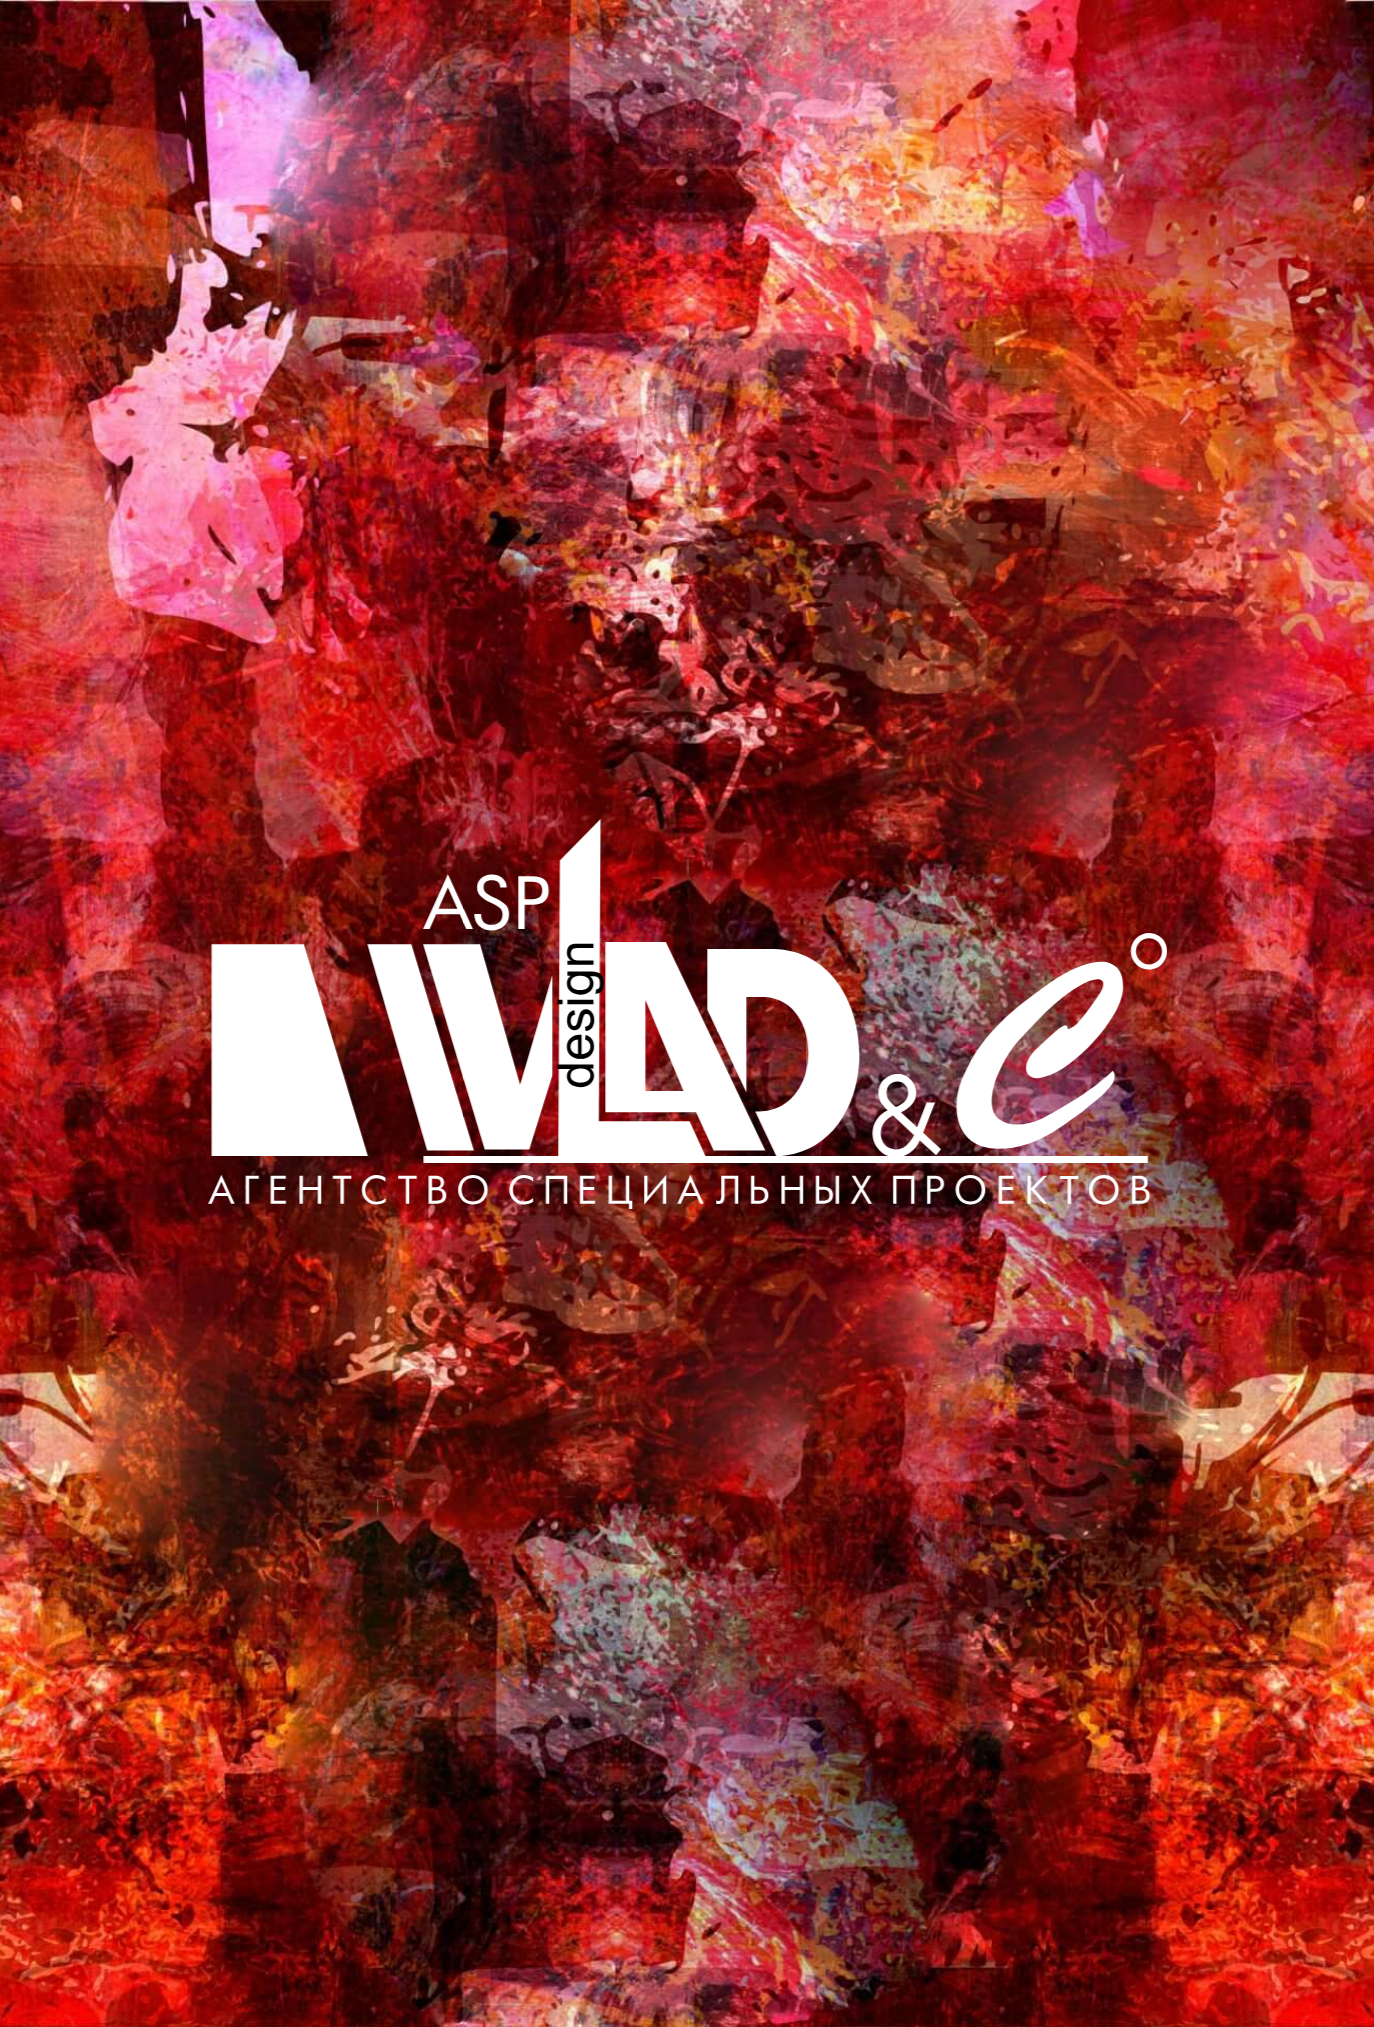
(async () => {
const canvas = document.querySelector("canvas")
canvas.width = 1374
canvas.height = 2027
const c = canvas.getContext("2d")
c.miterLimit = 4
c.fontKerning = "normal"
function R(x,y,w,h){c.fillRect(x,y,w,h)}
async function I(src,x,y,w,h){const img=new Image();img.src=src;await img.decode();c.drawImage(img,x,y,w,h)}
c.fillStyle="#fff"
R(0,0,1374,2027)
await I("1.png",0,0,1374,2027)
await I("2.png",208,819,959,390)
})()
